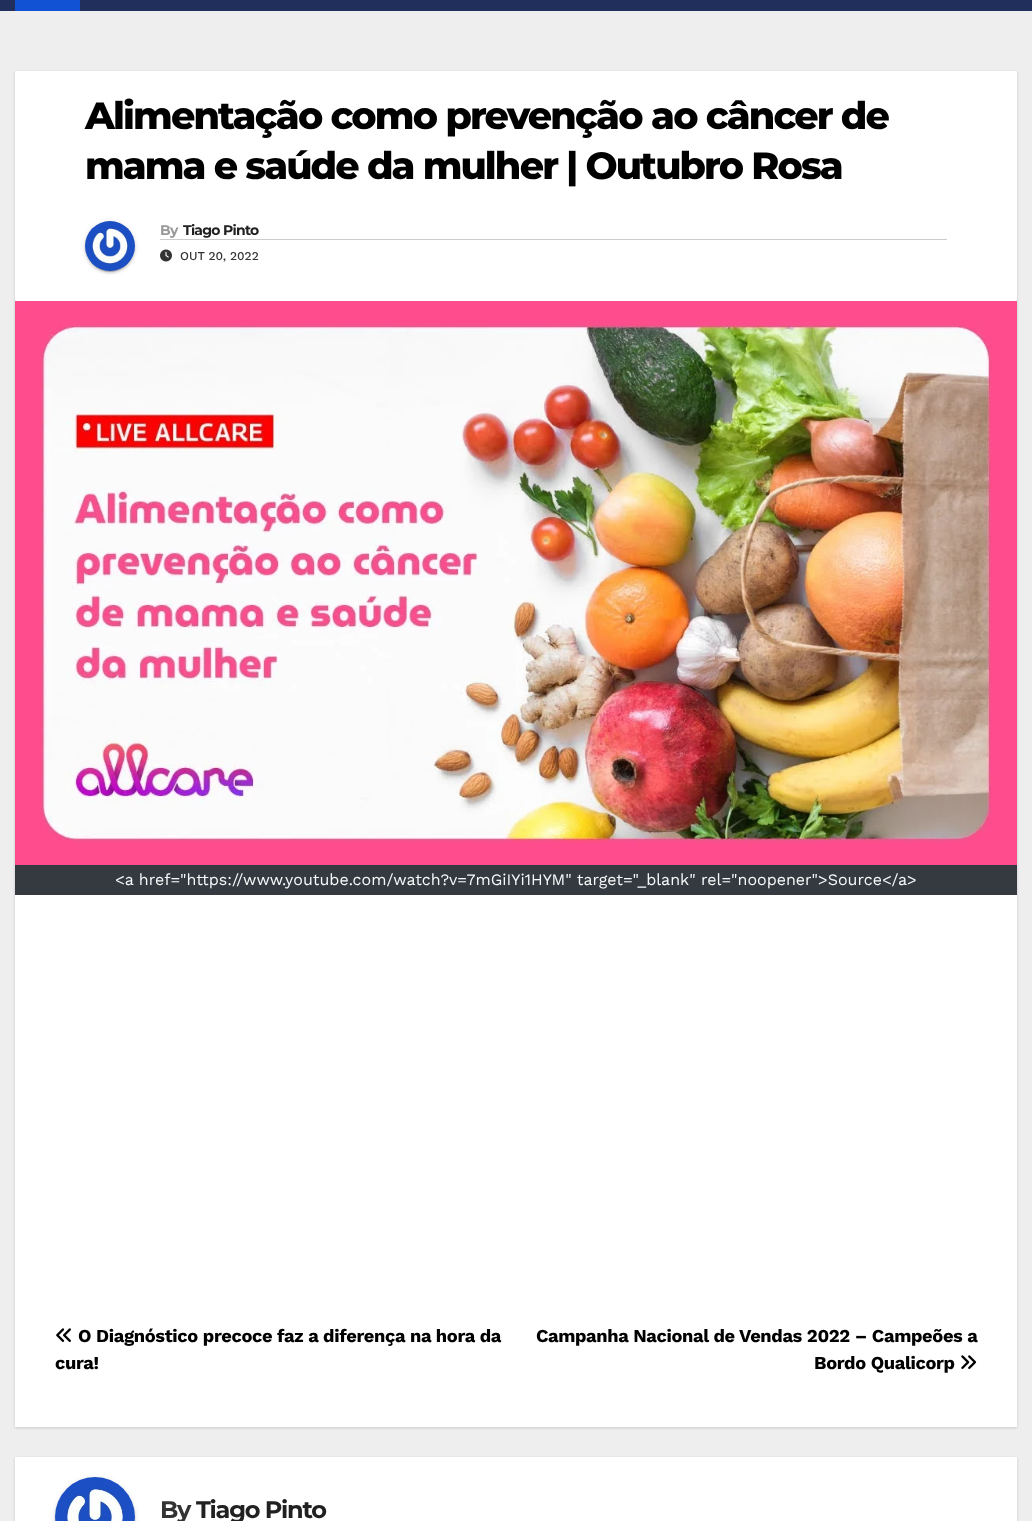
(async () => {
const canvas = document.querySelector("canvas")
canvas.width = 1032
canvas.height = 1521
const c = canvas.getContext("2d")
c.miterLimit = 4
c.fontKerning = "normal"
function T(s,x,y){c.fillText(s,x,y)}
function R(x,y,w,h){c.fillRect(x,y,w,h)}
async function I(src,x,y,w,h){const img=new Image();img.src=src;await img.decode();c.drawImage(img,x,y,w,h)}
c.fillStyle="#eee"
R(0,0,1032,1521)
c.fillStyle="#202f5b"
R(0,0,1032,11)
c.fillStyle="#1151d3"
R(15,0,65,11)
c.fillStyle="#00000026"
c.filter="blur(1.5px)"
c.beginPath()
c.rect(15,72,1002,1356)
c.fill()
c.filter="none"
c.fillStyle="#fff"
R(15,71,1002,1356)
c.letterSpacing="-1.9px"
c.font="800 38px Montserrat"
c.fillStyle="#000"
T("Alimentação como prevenção ao câncer de",85,129)
T("mama e saúde da mulher | Outubro Rosa",85,179)
c.fillStyle="#0000001f"
c.filter="blur(2.5px)"
c.beginPath()
c.roundRect(85,222,50,50,25)
c.fill()
c.filter="none"
c.fillStyle="#00000033"
c.filter="blur(0.5px)"
c.beginPath()
c.roundRect(87,226,46,46,23)
c.fill()
c.filter="none"
c.fillStyle="#00000024"
c.filter="blur(1px)"
c.beginPath()
c.roundRect(85,223,50,50,25)
c.fill()
c.filter="none"
await I("1.png",85,221,50,50)
c.fillStyle="#ccc"
R(160,239,787,1)
c.letterSpacing="-0.75px"
c.font="bold 14px Montserrat"
c.fillStyle="#999"
T("By",160,235)
c.fillStyle="#212121"
T("Tiago Pinto",183,235)
await I("2.png",160,249,12,13)
c.letterSpacing="0px"
c.font="500 12px Work Sans"
c.fillStyle="#333"
T("OUT 20, 2022",180,260)
await I("3.png",15,301,1002,564)
c.fillStyle="#343a40"
R(15,865,1002,30)
c.font="16px Work Sans"
c.fillStyle="#f8f9fa"
T("<a href=\"https://www.youtube.com/watch?v=7mGiIYi1HYM\" target=\"_blank\" rel=\"noopener\">Source<\/a>",115,885)
await I("4.png",56,1328,15,14)
c.letterSpacing="-0.35px"
c.font="bold 18.25px Work Sans"
c.fillStyle="#000"
T("O Diagnóstico precoce faz a diferença na hora da",78,1342)
T("cura!",55,1369)
T("Campanha Nacional de Vendas 2022 – Campeões a",536,1342)
T("Bordo Qualicorp",814,1369)
await I("5.png",961,1355,16,14)
c.fillStyle="#00000026"
c.filter="blur(1.5px)"
c.beginPath()
c.rect(15,1458,1002,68)
c.fill()
c.filter="none"
c.fillStyle="#fff"
R(15,1457,1002,64)
c.fillStyle="#0000001f"
c.filter="blur(2.5px)"
c.beginPath()
c.roundRect(55,1478,80,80,40)
c.fill()
c.filter="none"
c.fillStyle="#00000024"
c.filter="blur(1px)"
c.beginPath()
c.roundRect(55,1479,80,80,40)
c.fill()
c.filter="none"
await I("6.png",55,1477,80,44)
c.letterSpacing="-1.25px"
c.font="bold 24px Montserrat"
c.fillStyle="#333"
T("By",160,1518)
c.fillStyle="#212121"
T("Tiago Pinto",196,1518)
})()
